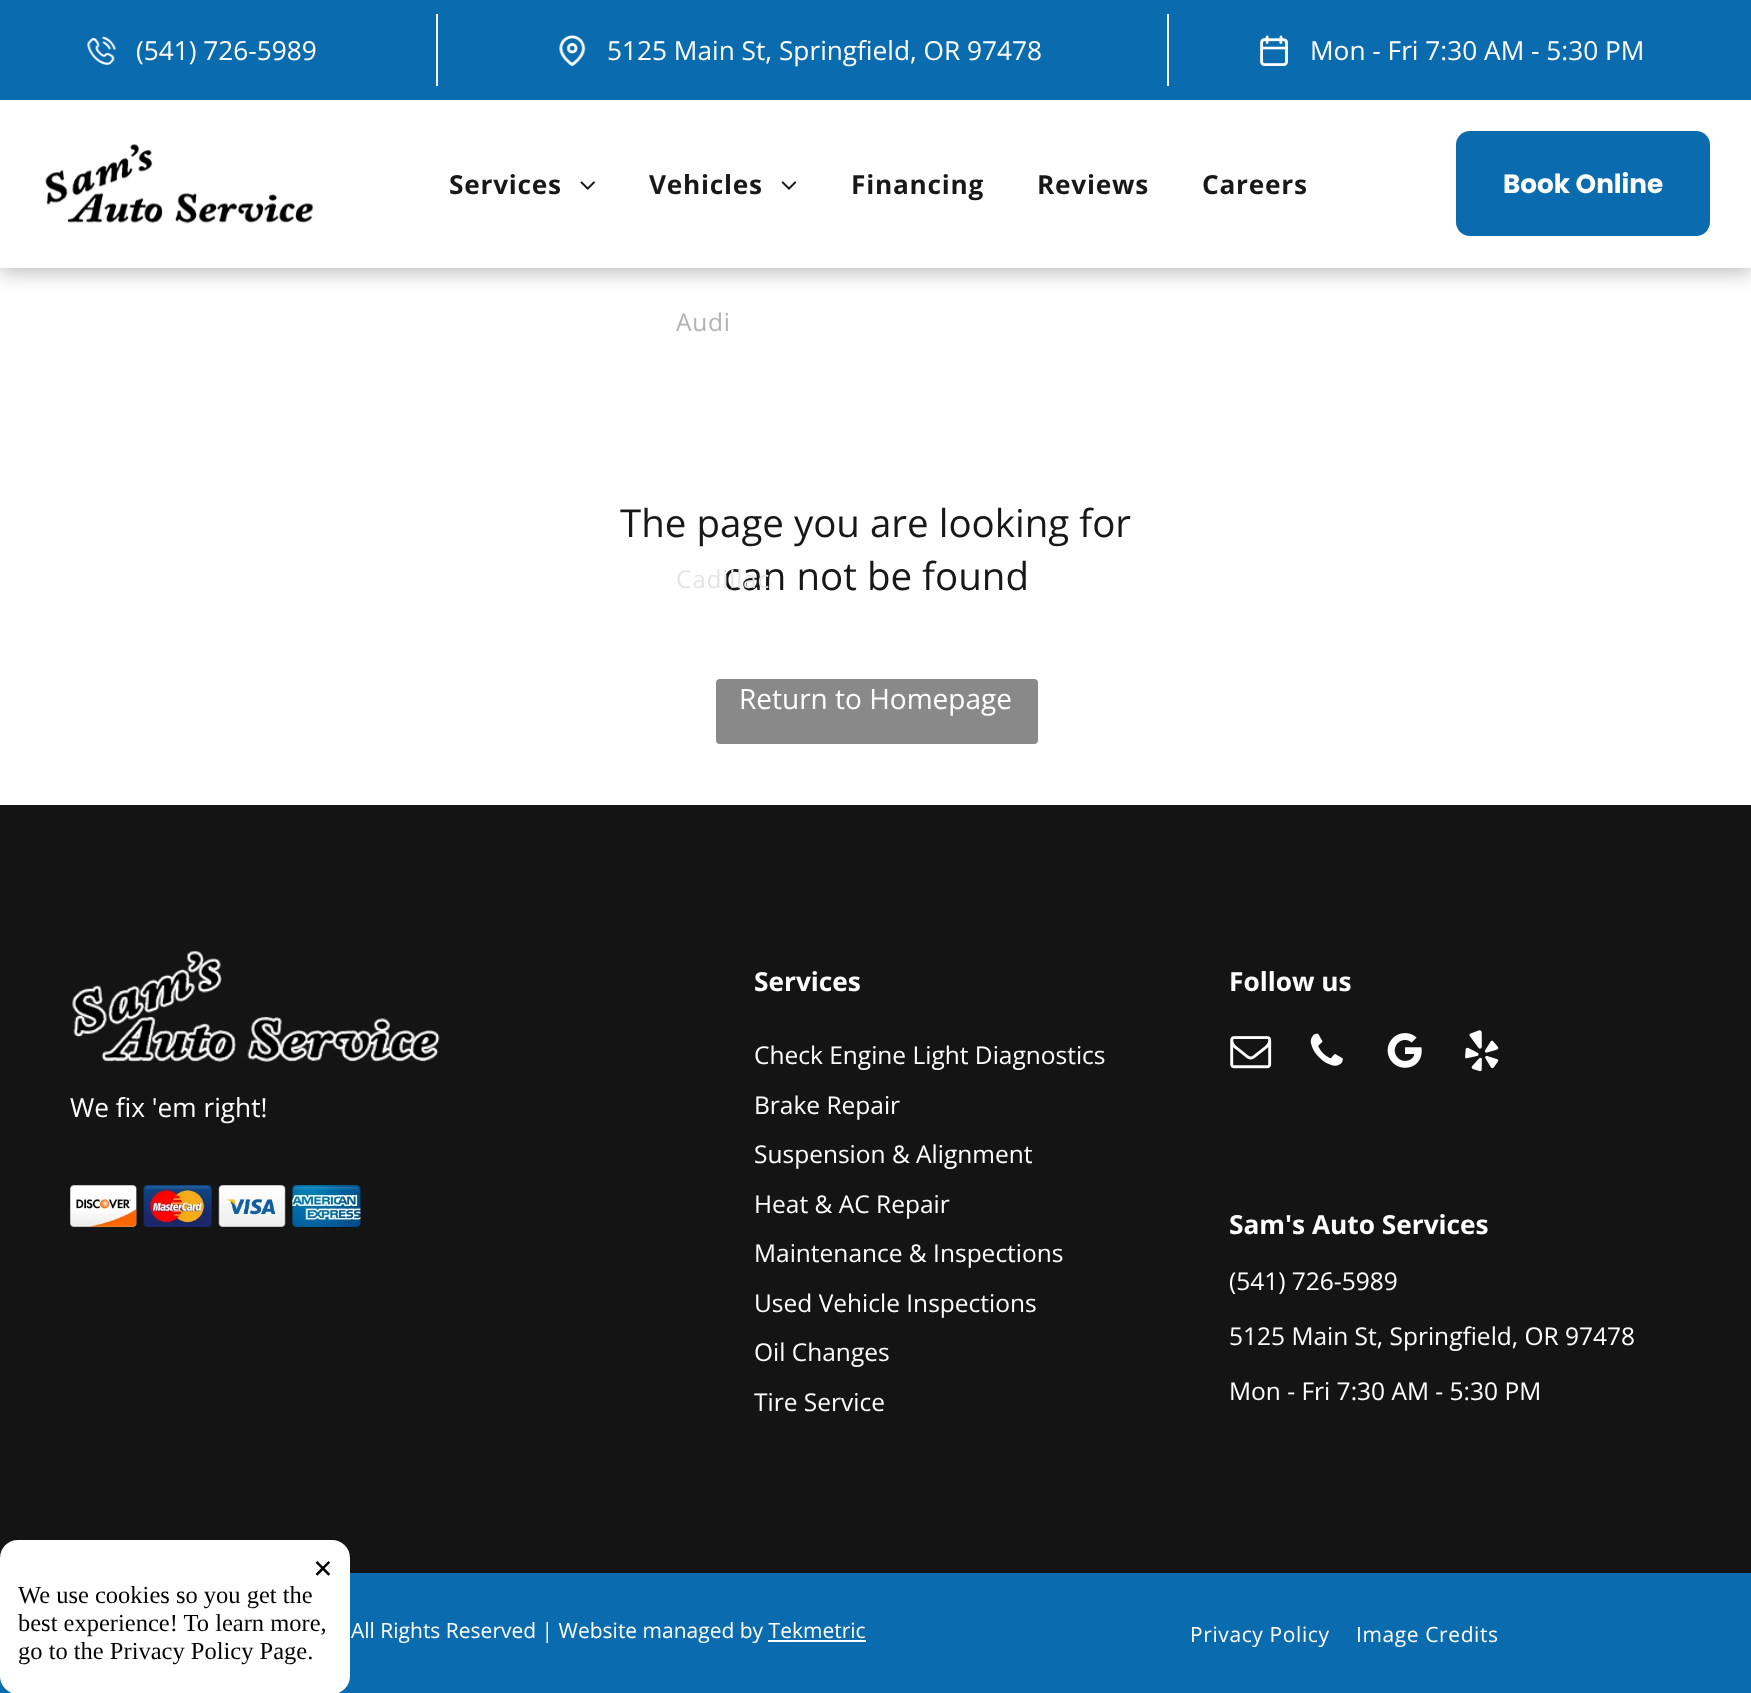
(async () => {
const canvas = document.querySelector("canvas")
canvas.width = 1751
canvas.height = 1693
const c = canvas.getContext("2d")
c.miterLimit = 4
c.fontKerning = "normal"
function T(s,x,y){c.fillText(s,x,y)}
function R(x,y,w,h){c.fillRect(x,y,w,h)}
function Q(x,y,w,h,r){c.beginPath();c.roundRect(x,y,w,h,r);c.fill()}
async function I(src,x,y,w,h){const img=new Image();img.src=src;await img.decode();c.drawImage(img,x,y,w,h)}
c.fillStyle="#fff"
R(0,0,1751,1693)
c.fillStyle="#00000040"
c.filter="blur(9.5px)"
c.beginPath()
c.rect(0,5,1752,268)
c.fill()
c.filter="none"
c.fillStyle="#0a6cae"
R(0,0,1751,100)
c.fillStyle="#fff"
R(436,14,2,72)
await I("1.png",87,36,30,29)
c.font="26.25px Open Sans"
T("(541) 726-5989",136,60)
await I("2.png",559,35,27,31)
T("5125 Main St, Springfield, OR 97478",607,60)
R(1167,14,2,72)
await I("3.png",1260,35,28,31)
T("Mon - Fri 7:30 AM - 5:30 PM",1310,60)
R(0,100,1751,168)
await I("4.png",45,144,269,80)
c.letterSpacing="0.75px"
c.font="bold 26.25px Open Sans"
c.fillStyle="#181818"
T("Services",449,194)
await I("5.png",580,181,15,9)
T("Vehicles",649,194)
await I("6.png",781,181,16,9)
c.font="24.5px Open Sans"
c.fillStyle="#b3b3b3"
T("Audi",676,331)
c.letterSpacing="0px"
c.font="38.5px Open Sans"
c.fillStyle="#181818"
T("can not be found",723,590)
c.letterSpacing="0.75px"
c.font="24.5px Open Sans"
c.fillStyle="#e5e5e5"
T("Cadillac",676,588)
c.font="bold 26.25px Open Sans"
c.fillStyle="#181818"
T("Financing",851,194)
T("Reviews",1037,194)
T("Careers",1202,194)
c.fillStyle="#0a6cae"
Q(1456,131,254,105,14)
c.letterSpacing="0px"
c.font="bold 26.25px Poppins"
c.fillStyle="#fff"
T("Book Online",1503,193)
c.font="38.5px Open Sans"
c.fillStyle="#181818"
T("The page you are looking for",620,537)
c.fillStyle="#898989"
Q(716,679,322,65,4)
c.font="28px Open Sans"
c.fillStyle="#fff"
T("Return to Homepage",739,709)
c.fillStyle="#141414"
R(0,805,1751,768)
await I("7.png",72,951,368,111)
c.font="26.25px Open Sans"
c.fillStyle="#fff"
T("We fix 'em right!",70,1117)
await I("8.png",70,1185,67,42)
await I("9.png",143,1185,69,42)
await I("10.png",218,1185,68,42)
await I("11.png",292,1185,69,42)
c.font="bold 26.25px Open Sans"
T("Services",754,991)
c.font="24.5px Open Sans"
T("Check Engine Light Diagnostics",754,1064)
T("Brake Repair",754,1114)
T("Suspension & Alignment",754,1163)
T("Heat & AC Repair",754,1213)
T("Maintenance & Inspections",754,1262)
T("Used Vehicle Inspections",754,1312)
T("Oil Changes",754,1361)
T("Tire Service",754,1411)
c.font="bold 26.25px Open Sans"
T("Follow us",1229,991)
await I("12.png",1230,1036,42,33)
await I("13.png",1310,1033,33,33)
await I("14.png",1387,1033,35,35)
await I("15.png",1465,1030,34,42)
T("Sam's Auto Services",1229,1234)
c.font="24.5px Open Sans"
T("(541) 726-5989",1229,1290)
T("5125 Main St, Springfield, OR 97478",1229,1345)
T("Mon - Fri 7:30 AM - 5:30 PM",1229,1400)
c.fillStyle="#0a6cae"
R(0,1573,1751,120)
c.font="21px Open Sans"
c.fillStyle="#fff"
T("All Rights Reserved | Website managed by Tekmetric",351,1638)
R(768,1640,98,2)
c.letterSpacing="0.6px"
T("Privacy Policy",1190,1642)
T("Image Credits",1356,1642)
Q(0,1540,350,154,18)
c.letterSpacing="0px"
c.font="bold 35px Liberation Serif"
c.fillStyle="#000"
T("×",313,1580)
c.font="24.5px Liberation Serif"
T("We use cookies so you get the",18,1603)
T("best experience! To learn more,",18,1631)
T("go to the Privacy Policy Page.",18,1659)
})()
